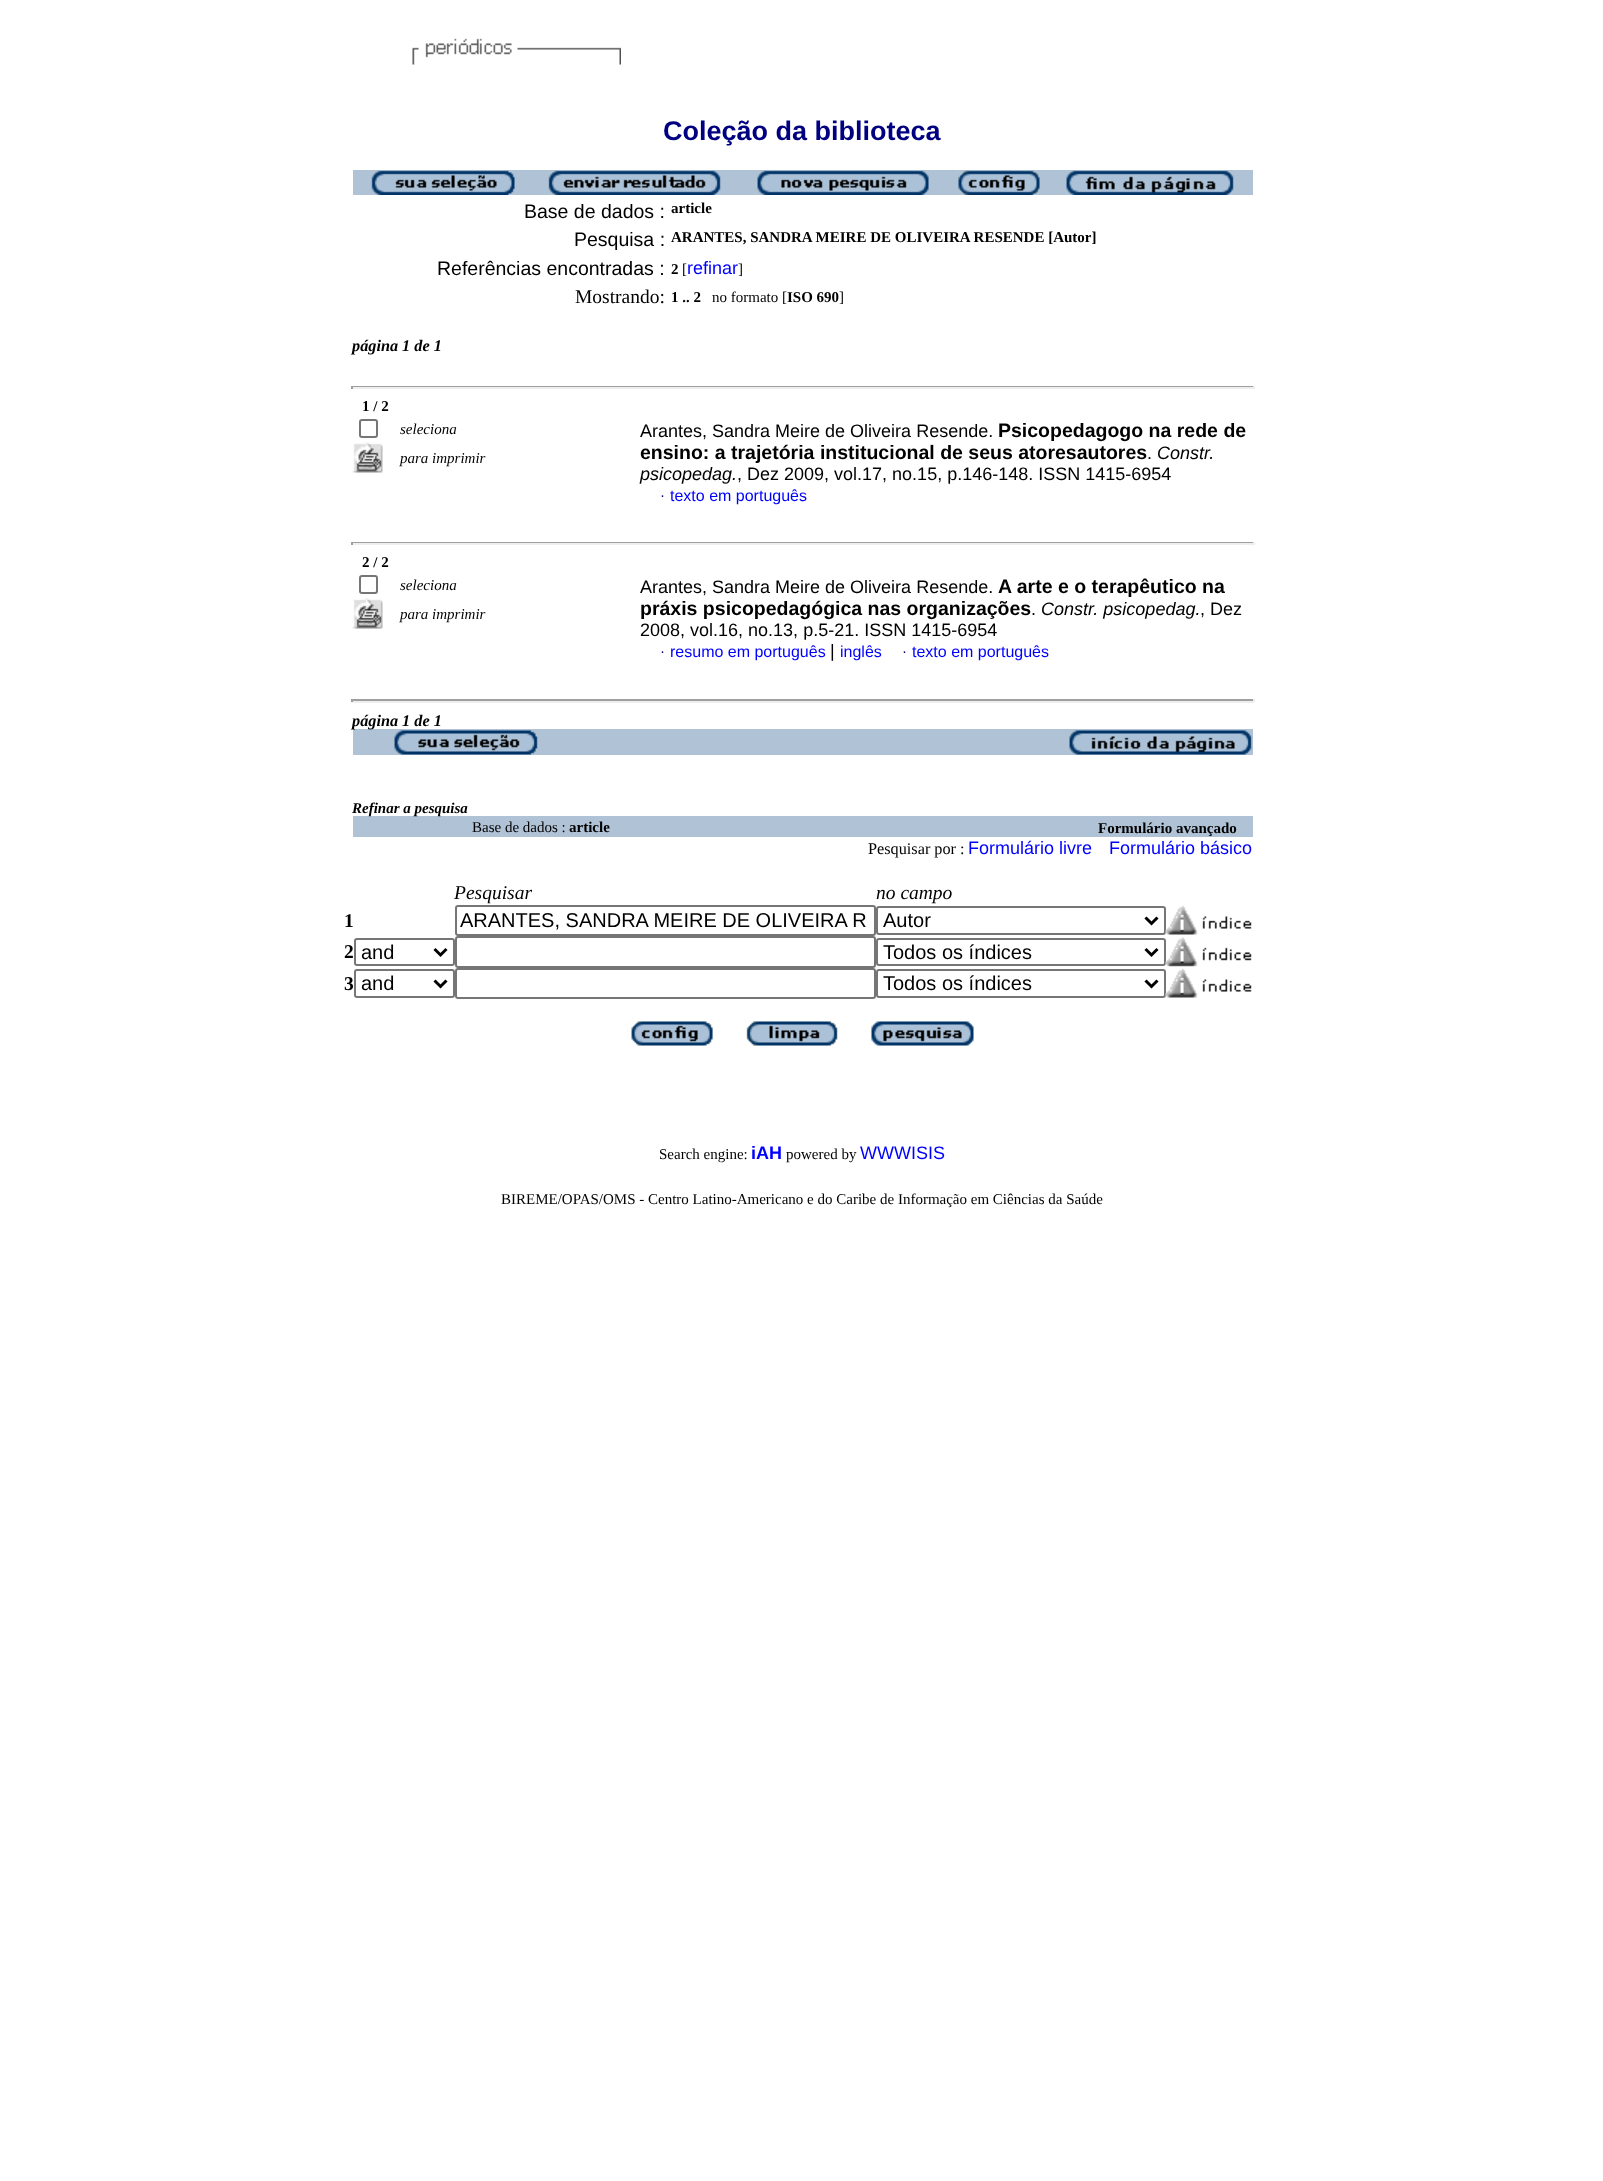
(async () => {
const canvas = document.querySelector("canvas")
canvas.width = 1603
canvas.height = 2181
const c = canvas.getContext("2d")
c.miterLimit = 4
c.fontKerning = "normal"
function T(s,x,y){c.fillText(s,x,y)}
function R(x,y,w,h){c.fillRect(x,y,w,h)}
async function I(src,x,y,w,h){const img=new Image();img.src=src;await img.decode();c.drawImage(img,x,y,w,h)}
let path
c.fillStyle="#fff"
R(0,0,1603,2181)
await I("1.png",412,38,209,27)
c.font="bold 27px Liberation Sans"
c.fillStyle="#000080"
T("Coleção da biblioteca",663,140)
c.fillStyle="#b0c2d5"
R(353,170,900,25)
await I("2.png",371,170,144,25)
await I("3.png",548,170,173,25)
await I("4.png",757,170,172,25)
await I("5.png",958,170,82,25)
await I("6.png",1066,170,168,25)
c.font="19.5px Liberation Sans"
c.fillStyle="#000"
T("Base de dados :",524,218)
c.font="bold 15px Liberation Serif"
T("article",671,213)
c.font="19.5px Liberation Sans"
T("Pesquisa :",574,246)
c.font="bold 15px Liberation Serif"
T("ARANTES, SANDRA MEIRE DE OLIVEIRA RESENDE [Autor]",671,242)
c.font="19.5px Liberation Sans"
T("Referências encontradas :",437,275)
c.font="bold 15px Liberation Serif"
T("2",671,274)
c.font="15px Liberation Serif"
T("[",682,274)
c.font="18px Liberation Sans"
c.fillStyle="#00f"
T("refinar",687,274)
c.font="15px Liberation Serif"
c.fillStyle="#000"
T("]",738,274)
c.font="19.5px Liberation Serif"
T("Mostrando:",575,303)
c.font="bold 15px Liberation Serif"
T("1 .. 2",671,302)
c.font="15px Liberation Serif"
T("no formato [",712,302)
c.font="bold 15px Liberation Serif"
T("ISO 690",787,302)
c.font="15px Liberation Serif"
T("]",839,302)
c.font="italic bold 16.25px Liberation Serif"
T("página 1 de 1",352,351)
c.fillStyle="#9f9f9f"
R(351,386,903,1)
c.fillStyle="#eee"
R(1253,386,2,3)
R(351,387,903,2)
c.fillStyle="#9f9f9f"
R(351,386,2,3)
c.font="bold 15px Liberation Serif"
c.fillStyle="#000"
T("1 / 2",362,411)
c.beginPath()
c.roundRect(360,420,17,17,2)
c.strokeStyle="#767676"
c.lineWidth=2
c.stroke()
c.font="italic 15px Liberation Serif"
T("seleciona",400,434)
await I("7.png",352,442,31,31)
T("para imprimir",400,463)
c.font="18px Liberation Sans"
T("Arantes, Sandra Meire de Oliveira Resende.",640,437)
c.font="bold 19.5px Liberation Sans"
T("Psicopedagogo na rede de",998,437)
T("ensino: a trajetória institucional de seus atoresautores",640,459)
c.font="18px Liberation Sans"
T(".",1147,459)
c.font="italic 18px Liberation Sans"
T("Constr.",1157,459)
T("psicopedag.",640,480)
c.font="18px Liberation Sans"
T(", Dez 2009, vol.17, no.15, p.146-148. ISSN 1415-6954",737,480)
c.font="15px Liberation Serif"
c.fillStyle="#000080"
T("·",660,501)
c.font="16px Liberation Sans"
c.fillStyle="#00f"
T("texto em português",670,501)
c.fillStyle="#9f9f9f"
R(351,542,903,1)
c.fillStyle="#eee"
R(1253,542,2,3)
R(351,543,903,2)
c.fillStyle="#9f9f9f"
R(351,542,2,3)
c.font="bold 15px Liberation Serif"
c.fillStyle="#000"
T("2 / 2",362,567)
c.beginPath()
c.roundRect(360,576,17,17,2)
c.stroke()
c.font="italic 15px Liberation Serif"
T("seleciona",400,590)
await I("7.png",352,598,31,31)
T("para imprimir",400,619)
c.font="18px Liberation Sans"
T("Arantes, Sandra Meire de Oliveira Resende.",640,593)
c.font="bold 19.5px Liberation Sans"
T("A arte e o terapêutico na",998,593)
T("práxis psicopedagógica nas organizações",640,615)
c.font="18px Liberation Sans"
T(".",1031,615)
c.font="italic 18px Liberation Sans"
T("Constr. psicopedag.",1041,615)
c.font="18px Liberation Sans"
T(", Dez",1200,615)
T("2008, vol.16, no.13, p.5-21. ISSN 1415-6954",640,636)
c.font="15px Liberation Serif"
c.fillStyle="#000080"
T("·",660,657)
c.font="16px Liberation Sans"
c.fillStyle="#00f"
T("resumo em português",670,657)
c.font="18px Liberation Sans"
c.fillStyle="#000"
T("|",830,657)
c.font="16px Liberation Sans"
c.fillStyle="#00f"
T("inglês",840,657)
c.font="15px Liberation Serif"
c.fillStyle="#000080"
T("·",902,657)
c.font="16px Liberation Sans"
c.fillStyle="#00f"
T("texto em português",912,657)
c.fillStyle="#9f9f9f"
R(351,699,903,2)
c.fillStyle="#eee"
R(1253,699,2,3)
R(351,701,903,2)
c.fillStyle="#9f9f9f"
R(351,699,2,3)
c.fillStyle="#b0c2d5"
R(353,729,900,26)
c.font="italic bold 16.25px Liberation Serif"
c.fillStyle="#000"
T("página 1 de 1",352,726)
await I("8.png",394,730,144,25)
await I("9.png",1069,730,183,25)
c.fillStyle="#b0c2d5"
R(353,816,900,21)
c.font="italic bold 15px Liberation Serif"
c.fillStyle="#000"
T("Refinar a pesquisa",352,813)
c.font="15px Liberation Serif"
T("Base de dados :",472,832)
c.font="bold 15px Liberation Serif"
T("article",569,832)
T("Formulário avançado",1098,833)
c.font="16.25px Liberation Serif"
T("Pesquisar por :",868,854)
c.font="18px Liberation Sans"
c.fillStyle="#00f"
T("Formulário livre",968,854)
T("Formulário básico",1109,854)
c.font="italic 19.5px Liberation Serif"
c.fillStyle="#000"
T("Pesquisar",454,899)
T("no campo",876,899)
c.font="bold 19.5px Liberation Serif"
T("1",344,927)
c.beginPath()
c.roundRect(456,906,419,29,2)
c.stroke()
c.font="20px Liberation Sans"
T("ARANTES, SANDRA MEIRE DE OLIVEIRA R",460,927)
c.beginPath()
c.roundRect(877,907,288,27,2)
c.stroke()
path = new Path2D("M1145.5 917.5l6 6l6-6")
c.strokeStyle="#000"
c.lineWidth=3
c.stroke(path)
T("Autor",883,927)
await I("10.png",1165,906,87,29)
c.font="bold 19.5px Liberation Serif"
T("2",344,958)
c.beginPath()
c.roundRect(355,939,99,26,2)
c.strokeStyle="#767676"
c.lineWidth=2
c.stroke()
path = new Path2D("M434.5 949l6 6l6-6")
c.strokeStyle="#000"
c.lineWidth=3
c.stroke(path)
c.font="20px Liberation Sans"
T("and",361,959)
c.beginPath()
c.roundRect(456,937,419,30,2)
c.strokeStyle="#767676"
c.lineWidth=2
c.stroke()
c.beginPath()
c.roundRect(877,939,288,26,2)
c.stroke()
path = new Path2D("M1145.5 949l6 6l6-6")
c.strokeStyle="#000"
c.lineWidth=3
c.stroke(path)
T("Todos os índices",883,959)
await I("11.png",1165,937,87,30)
c.font="bold 19.5px Liberation Serif"
T("3",344,990)
c.beginPath()
c.roundRect(355,970,99,27,2)
c.strokeStyle="#767676"
c.lineWidth=2
c.stroke()
path = new Path2D("M434.5 980.5l6 6l6-6")
c.strokeStyle="#000"
c.lineWidth=3
c.stroke(path)
c.font="20px Liberation Sans"
T("and",361,990)
c.beginPath()
c.roundRect(456,969,419,29,2)
c.strokeStyle="#767676"
c.lineWidth=2
c.stroke()
c.beginPath()
c.roundRect(877,970,288,27,2)
c.stroke()
path = new Path2D("M1145.5 980.5l6 6l6-6")
c.strokeStyle="#000"
c.lineWidth=3
c.stroke(path)
T("Todos os índices",883,990)
await I("10.png",1165,969,87,29)
await I("12.png",631,1021,82,25)
await I("13.png",746,1021,92,25)
await I("14.png",871,1021,103,25)
c.font="15px Liberation Serif"
T("Search engine:",659,1159)
c.font="bold 18px Liberation Sans"
c.fillStyle="#00f"
T("iAH",751,1159)
c.font="15px Liberation Serif"
c.fillStyle="#000"
T("powered by",786,1159)
c.font="18px Liberation Sans"
c.fillStyle="#00f"
T("WWWISIS",860,1159)
c.font="15px Liberation Serif"
c.fillStyle="#000"
T("BIREME/OPAS/OMS - Centro Latino-Americano e do Caribe de Informação em Ciências da Saúde",501,1204)
})()
